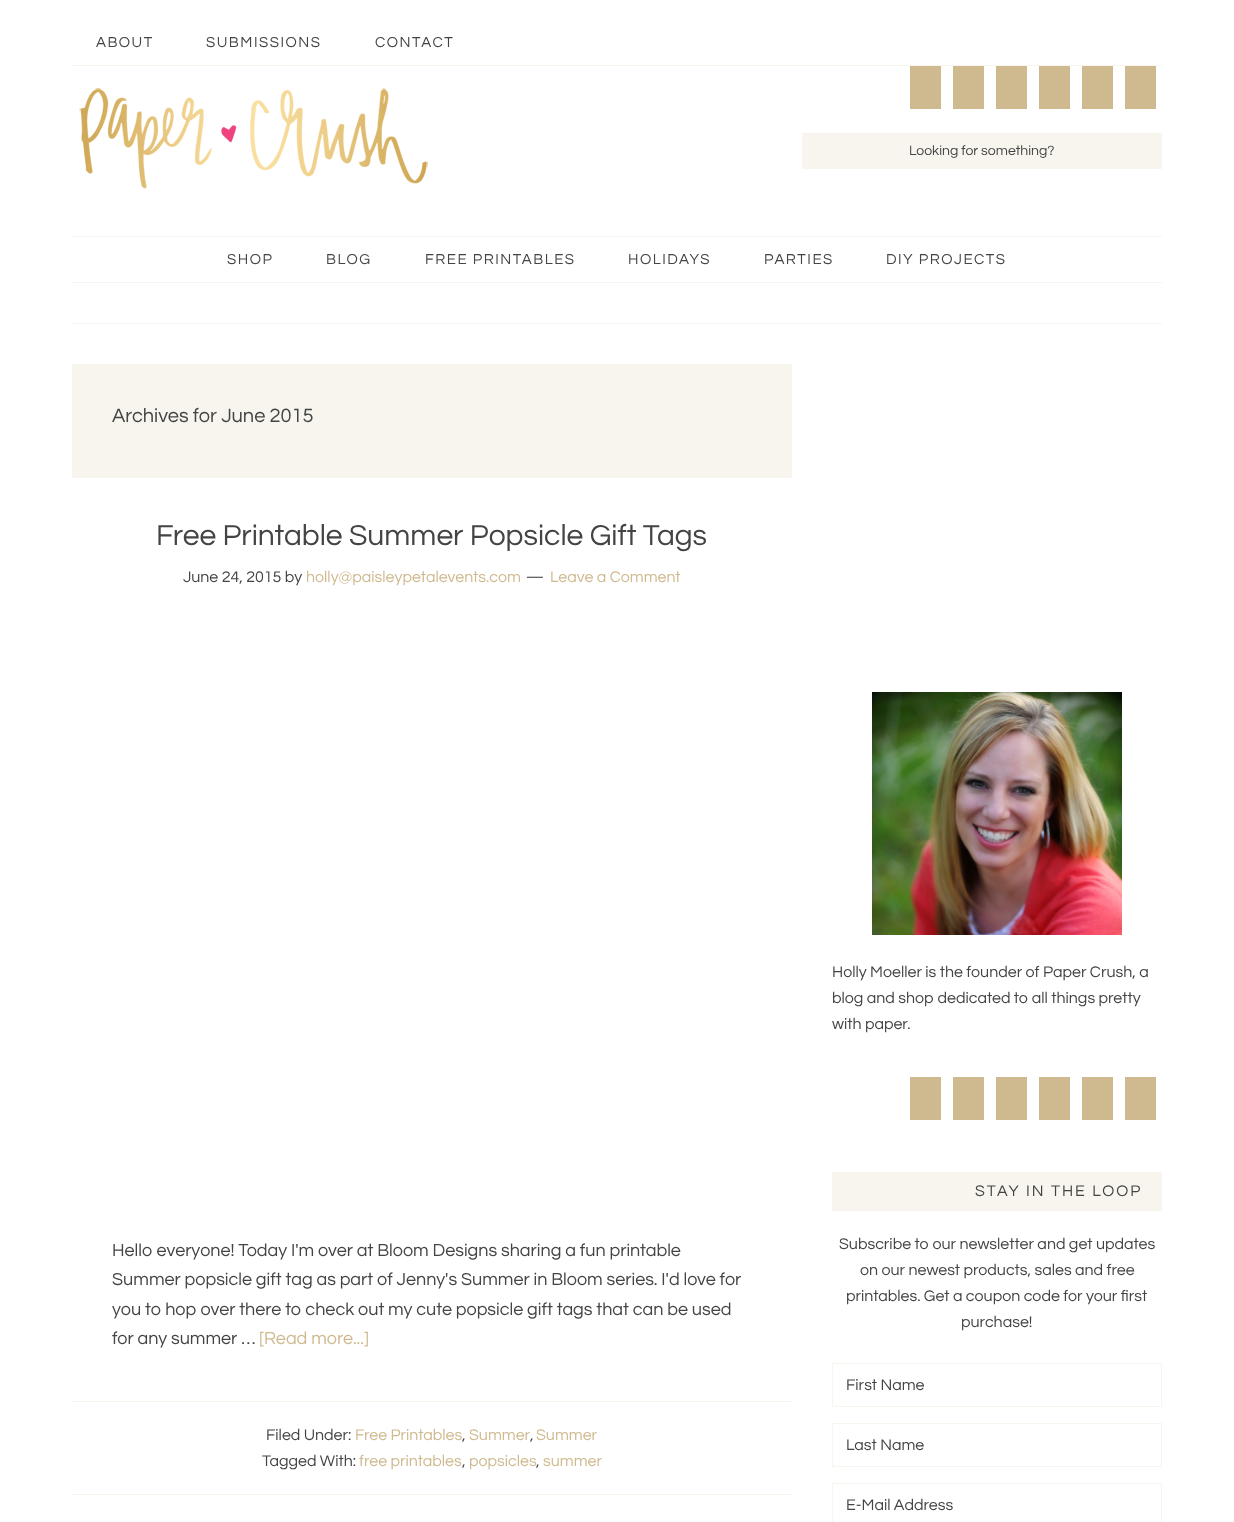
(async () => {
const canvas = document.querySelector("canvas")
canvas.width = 1234
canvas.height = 1522
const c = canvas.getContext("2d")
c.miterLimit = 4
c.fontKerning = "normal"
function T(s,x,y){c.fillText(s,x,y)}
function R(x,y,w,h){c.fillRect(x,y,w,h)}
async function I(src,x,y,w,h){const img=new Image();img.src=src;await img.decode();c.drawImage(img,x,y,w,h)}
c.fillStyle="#fff"
R(0,0,1234,1522)
c.fillStyle="#f7f5ee"
R(72,65,1090,1)
c.letterSpacing="1.5px"
c.font="15px Questrial"
c.fillStyle="#444"
T("ABOUT",96,47)
T("SUBMISSIONS",206,47)
T("CONTACT",375,47)
await I("1.png",79,88,349,101)
c.fillStyle="#cfb98e"
R(910,66,31,43)
R(953,66,31,43)
R(996,66,31,43)
R(1039,66,31,43)
R(1082,66,31,43)
R(1125,66,31,43)
c.fillStyle="#f7f5ee"
R(802,133,360,36)
c.letterSpacing="0px"
c.font="14px Questrial"
c.fillStyle="#444"
T("Looking for something?",909,155)
c.fillStyle="#f7f5ee"
R(72,236,1090,1)
R(72,282,1090,1)
c.letterSpacing="1.5px"
c.font="15px Questrial"
c.fillStyle="#444"
T("SHOP",227,264)
T("BLOG",326,264)
T("FREE PRINTABLES",425,264)
T("HOLIDAYS",628,264)
T("PARTIES",764,264)
T("DIY PROJECTS",886,264)
c.fillStyle="#f7f5ee"
R(72,323,1090,1)
R(72,364,720,114)
c.letterSpacing="0px"
c.font="20px Questrial"
c.fillStyle="#444"
T("Archives for June 2015",112,422)
c.font="30px Questrial"
T("Free Printable Summer Popsicle Gift Tags",156,545)
c.font="16px Questrial"
T("June 24, 2015 by",183,582)
c.fillStyle="#cfb98e"
T("holly@paisleypetalevents.com",306,582)
c.fillStyle="#444"
T("—",526,582)
c.fillStyle="#cfb98e"
T("Leave a Comment",550,582)
c.font="18px Questrial"
c.fillStyle="#444"
T("Hello everyone! Today I'm over at Bloom Designs sharing a fun printable",112,1256)
T("Summer popsicle gift tag as part of Jenny's Summer in Bloom series. I'd love for",112,1285)
T("you to hop over there to check out my cute popsicle gift tags that can be used",112,1315)
T("for any summer …",112,1344)
c.fillStyle="#cfb98e"
T("[Read more...]",259,1344)
c.fillStyle="#f7f5ee"
R(72,1401,720,1)
R(72,1494,720,1)
c.font="16px Questrial"
c.fillStyle="#444"
T("Filed Under:",266,1440)
c.fillStyle="#cfb98e"
T("Free Printables",355,1440)
c.fillStyle="#444"
T(",",462,1440)
c.fillStyle="#cfb98e"
T("Summer",469,1440)
c.fillStyle="#444"
T(",",530,1440)
c.fillStyle="#cfb98e"
T("Summer",536,1440)
c.fillStyle="#444"
T("Tagged With:",262,1466)
c.fillStyle="#cfb98e"
T("free printables",359,1466)
c.fillStyle="#444"
T(",",462,1466)
c.fillStyle="#cfb98e"
T("popsicles",469,1466)
c.fillStyle="#444"
T(",",536,1466)
c.fillStyle="#cfb98e"
T("summer",543,1466)
await I("2.png",872,692,250,243)
c.fillStyle="#444"
T("Holly Moeller is the founder of Paper Crush, a",832,977)
T("blog and shop dedicated to all things pretty",832,1003)
T("with paper.",832,1029)
c.fillStyle="#cfb98e"
R(910,1077,31,43)
R(953,1077,31,43)
R(996,1077,31,43)
R(1039,1077,31,43)
R(1082,1077,31,43)
R(1125,1077,31,43)
c.fillStyle="#f7f5ee"
R(832,1172,330,39)
c.letterSpacing="2px"
c.fillStyle="#444"
T("STAY IN THE LOOP",975,1196)
c.letterSpacing="0px"
T("Subscribe to our newsletter and get updates",839,1249)
T("on our newest products, sales and free",860,1275)
T("printables. Get a coupon code for your first",846,1301)
T("purchase!",961,1327)
c.strokeStyle="#f7f5ee"
c.strokeRect(832.5,1363.5,329,43)
T("First Name",846,1390)
c.strokeRect(832.5,1423.5,329,43)
T("Last Name",846,1450)
c.strokeRect(832.5,1483.5,329,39)
T("E-Mail Address",846,1510)
})()
